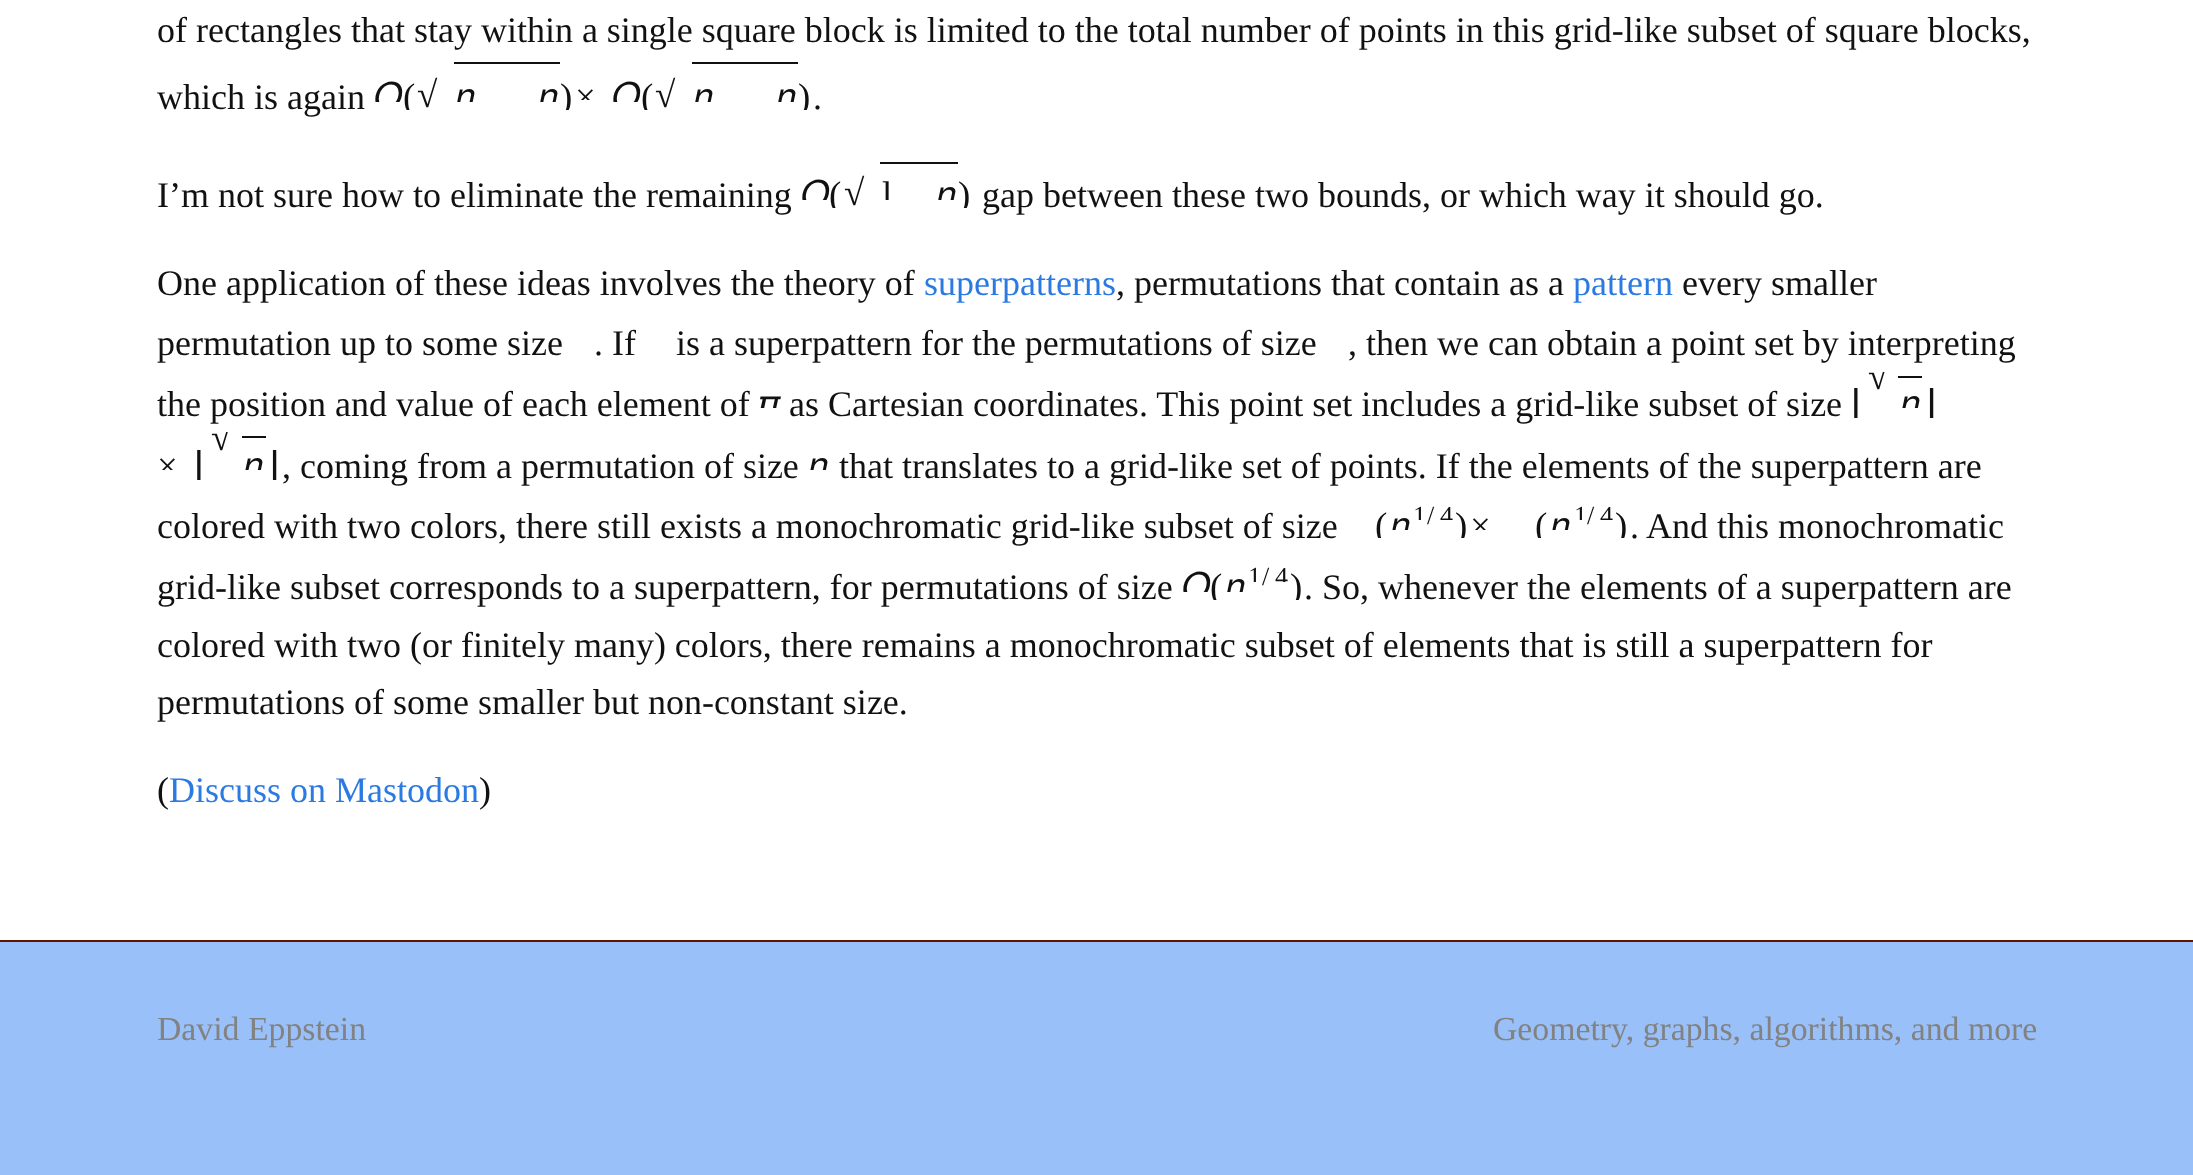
(async () => {
const canvas = document.querySelector("canvas")
canvas.width = 2193
canvas.height = 1175
const c = canvas.getContext("2d")
c.miterLimit = 4
c.fontKerning = "normal"
function T(s,x,y){c.fillText(s,x,y)}
function R(x,y,w,h){c.fillRect(x,y,w,h)}
c.fillStyle="#99c0f8"
R(0,0,2193,1175)
c.fillStyle="#fff"
R(0,0,2193,940)
c.font="36px Liberation Serif"
c.fillStyle="#111"
T("of rectangles that stay within a single square block is limited to the total number of points in this grid-like subset of square blocks,",157,42)
T("which is again",157,109)
c.save()
c.beginPath()
c.rect(336,66,104,36)
c.clip()
c.font="37px FreeSans"
T("𝑂",374,109)
c.restore()
c.save()
c.beginPath()
c.rect(366,64,88,46)
c.clip()
c.font="37px Liberation Serif"
T("(",403,109)
c.restore()
c.font="37px Liberation Serif"
T("√",417,107)
R(454,62,106,2)
c.save()
c.beginPath()
c.rect(418,76,96,26)
c.clip()
c.font="37px FreeSans"
T("𝑛",455,109)
c.restore()
c.save()
c.beginPath()
c.rect(500,76,98,26)
c.clip()
c.font="37px FreeSans"
T("𝑛",538,109)
c.restore()
c.save()
c.beginPath()
c.rect(522,64,90,46)
c.clip()
T(")",560,109)
c.restore()
c.save()
c.beginPath()
c.rect(538,74,104,26)
c.clip()
T("×",575,109)
c.restore()
c.save()
c.beginPath()
c.rect(574,66,104,36)
c.clip()
c.font="37px FreeSans"
T("𝑂",612,109)
c.restore()
c.save()
c.beginPath()
c.rect(604,64,88,46)
c.clip()
T("(",641,109)
c.restore()
T("√",655,107)
R(692,62,106,2)
c.save()
c.beginPath()
c.rect(656,76,98,26)
c.clip()
c.font="37px FreeSans"
T("𝑛",693,109)
c.restore()
c.save()
c.beginPath()
c.rect(738,76,98,26)
c.clip()
c.font="37px FreeSans"
T("𝑛",776,109)
c.restore()
c.save()
c.beginPath()
c.rect(760,64,90,46)
c.clip()
T(")",798,109)
c.restore()
c.font="36px Liberation Serif"
T(".",813,109)
T("I’m not sure how to eliminate the remaining",157,207)
c.save()
c.beginPath()
c.rect(764,164,102,36)
c.clip()
c.font="37px FreeSans"
T("𝑂",801,207)
c.restore()
c.save()
c.beginPath()
c.rect(792,164,90,44)
c.clip()
c.font="37px Liberation Serif"
T("(",829,207)
c.restore()
c.font="37px Liberation Serif"
T("√",844,205)
R(880,162,78,2)
c.save()
c.beginPath()
c.rect(844,166,86,34)
c.clip()
T("l",882,207)
c.restore()
c.save()
c.beginPath()
c.rect(898,174,98,26)
c.clip()
c.font="37px FreeSans"
T("𝑛",936,207)
c.restore()
c.save()
c.beginPath()
c.rect(922,164,88,44)
c.clip()
T(")",958,207)
c.restore()
c.font="36px Liberation Serif"
T("gap between these two bounds, or which way it should go.",982,207)
T("One application of these ideas involves the theory of",157,295)
c.fillStyle="#2a7ae2"
T("superpatterns",924,295)
c.fillStyle="#111"
T(", permutations that contain as a",1116,295)
c.fillStyle="#2a7ae2"
T("pattern",1573,295)
c.fillStyle="#111"
T("every smaller",1682,295)
T("permutation up to some size",157,355)
T(". If",594,355)
T("is a superpattern for the permutations of size",676,355)
T(", then we can obtain a point set by interpreting",1348,355)
c.save()
c.beginPath()
c.rect(1814,372,92,46)
c.clip()
c.font="37px DejaVu Sans"
T("⌊",1851,416)
c.restore()
c.save()
c.beginPath()
c.rect(1830,372,108,44)
c.clip()
c.font="37px Liberation Serif"
T("√",1868,389)
c.restore()
R(1898,376,24,2)
c.save()
c.beginPath()
c.rect(1862,384,98,24)
c.clip()
c.font="37px FreeSans"
T("𝑛",1900,416)
c.restore()
c.save()
c.beginPath()
c.rect(1884,372,92,46)
c.clip()
c.font="37px DejaVu Sans"
T("⌋",1922,416)
c.restore()
c.save()
c.beginPath()
c.rect(120,444,104,26)
c.clip()
c.font="37px Liberation Serif"
T("×",157,478)
c.restore()
c.save()
c.beginPath()
c.rect(156,434,92,46)
c.clip()
c.font="37px DejaVu Sans"
T("⌊",194,478)
c.restore()
c.save()
c.beginPath()
c.rect(174,432,106,46)
c.clip()
c.font="37px Liberation Serif"
T("√",211,450)
c.restore()
R(242,436,24,2)
c.save()
c.beginPath()
c.rect(206,446,96,24)
c.clip()
c.font="37px FreeSans"
T("𝑛",243,478)
c.restore()
c.save()
c.beginPath()
c.rect(228,434,92,46)
c.clip()
c.font="37px DejaVu Sans"
T("⌋",265,478)
c.restore()
T("the position and value of each element of",157,416)
c.save()
c.beginPath()
c.rect(722,384,96,24)
c.clip()
c.font="37px FreeSans"
T("𝜋",759,416)
c.restore()
T("as Cartesian coordinates. This point set includes a grid-like subset of size",789,416)
T(", coming from a permutation of size",282,478)
c.save()
c.beginPath()
c.rect(770,446,98,24)
c.clip()
c.font="37px FreeSans"
T("𝑛",808,478)
c.restore()
T("that translates to a grid-like set of points. If the elements of the superpattern are",839,478)
T("colored with two colors, there still exists a monochromatic grid-like subset of size",157,538)
c.save()
c.beginPath()
c.rect(1338,494,90,44)
c.clip()
c.font="37px Liberation Serif"
T("(",1375,538)
c.restore()
c.save()
c.beginPath()
c.rect(1352,506,98,24)
c.clip()
c.font="37px FreeSans"
T("𝑛",1390,538)
c.restore()
c.save()
c.beginPath()
c.rect(1388,494,66,26)
c.clip()
c.font="26px Liberation Serif"
T("1",1413,524)
c.restore()
c.font="26px Liberation Serif"
T("/",1427,524)
c.save()
c.beginPath()
c.rect(1414,494,66,26)
c.clip()
T("4",1440,524)
c.restore()
c.save()
c.beginPath()
c.rect(1418,494,88,44)
c.clip()
c.font="37px Liberation Serif"
T(")",1455,538)
c.restore()
c.save()
c.beginPath()
c.rect(1432,504,104,26)
c.clip()
c.font="37px Liberation Serif"
T("×",1470,538)
c.restore()
c.save()
c.beginPath()
c.rect(1498,494,90,44)
c.clip()
c.font="37px Liberation Serif"
T("(",1535,538)
c.restore()
c.save()
c.beginPath()
c.rect(1512,506,98,24)
c.clip()
c.font="37px FreeSans"
T("𝑛",1550,538)
c.restore()
c.save()
c.beginPath()
c.rect(1548,494,66,26)
c.clip()
T("1",1574,524)
c.restore()
T("/",1587,524)
c.save()
c.beginPath()
c.rect(1574,494,66,26)
c.clip()
T("4",1600,524)
c.restore()
c.save()
c.beginPath()
c.rect(1578,494,90,44)
c.clip()
c.font="37px Liberation Serif"
T(")",1615,538)
c.restore()
c.font="36px Liberation Serif"
T(". And this monochromatic",1630,538)
T("grid-like subset corresponds to a superpattern, for permutations of size",157,599)
c.save()
c.beginPath()
c.rect(1144,556,104,36)
c.clip()
c.font="37px FreeSans"
T("𝑂",1182,599)
c.restore()
c.save()
c.beginPath()
c.rect(1172,554,90,46)
c.clip()
c.font="37px Liberation Serif"
T("(",1210,599)
c.restore()
c.save()
c.beginPath()
c.rect(1188,566,96,26)
c.clip()
c.font="37px FreeSans"
T("𝑛",1225,599)
c.restore()
c.save()
c.beginPath()
c.rect(1222,556,66,26)
c.clip()
c.font="26px Liberation Serif"
T("1",1248,585)
c.restore()
c.font="26px Liberation Serif"
T("/",1262,585)
c.save()
c.beginPath()
c.rect(1248,556,66,26)
c.clip()
T("4",1275,585)
c.restore()
c.save()
c.beginPath()
c.rect(1252,554,90,46)
c.clip()
c.font="37px Liberation Serif"
T(")",1290,599)
c.restore()
c.font="36px Liberation Serif"
T(". So, whenever the elements of a superpattern are",1304,599)
T("colored with two (or finitely many) colors, there remains a monochromatic subset of elements that is still a superpattern for",157,657)
T("permutations of some smaller but non-constant size.",157,714)
T("(",157,802)
c.fillStyle="#2a7ae2"
T("Discuss on Mastodon",169,802)
c.fillStyle="#111"
T(")",479,802)
c.fillStyle="#5f1400"
R(0,940,2193,2)
c.font="33.75px Liberation Serif"
c.fillStyle="#828282"
T("David Eppstein",157,1040)
T("Geometry, graphs, algorithms, and more",1493,1040)
})()
